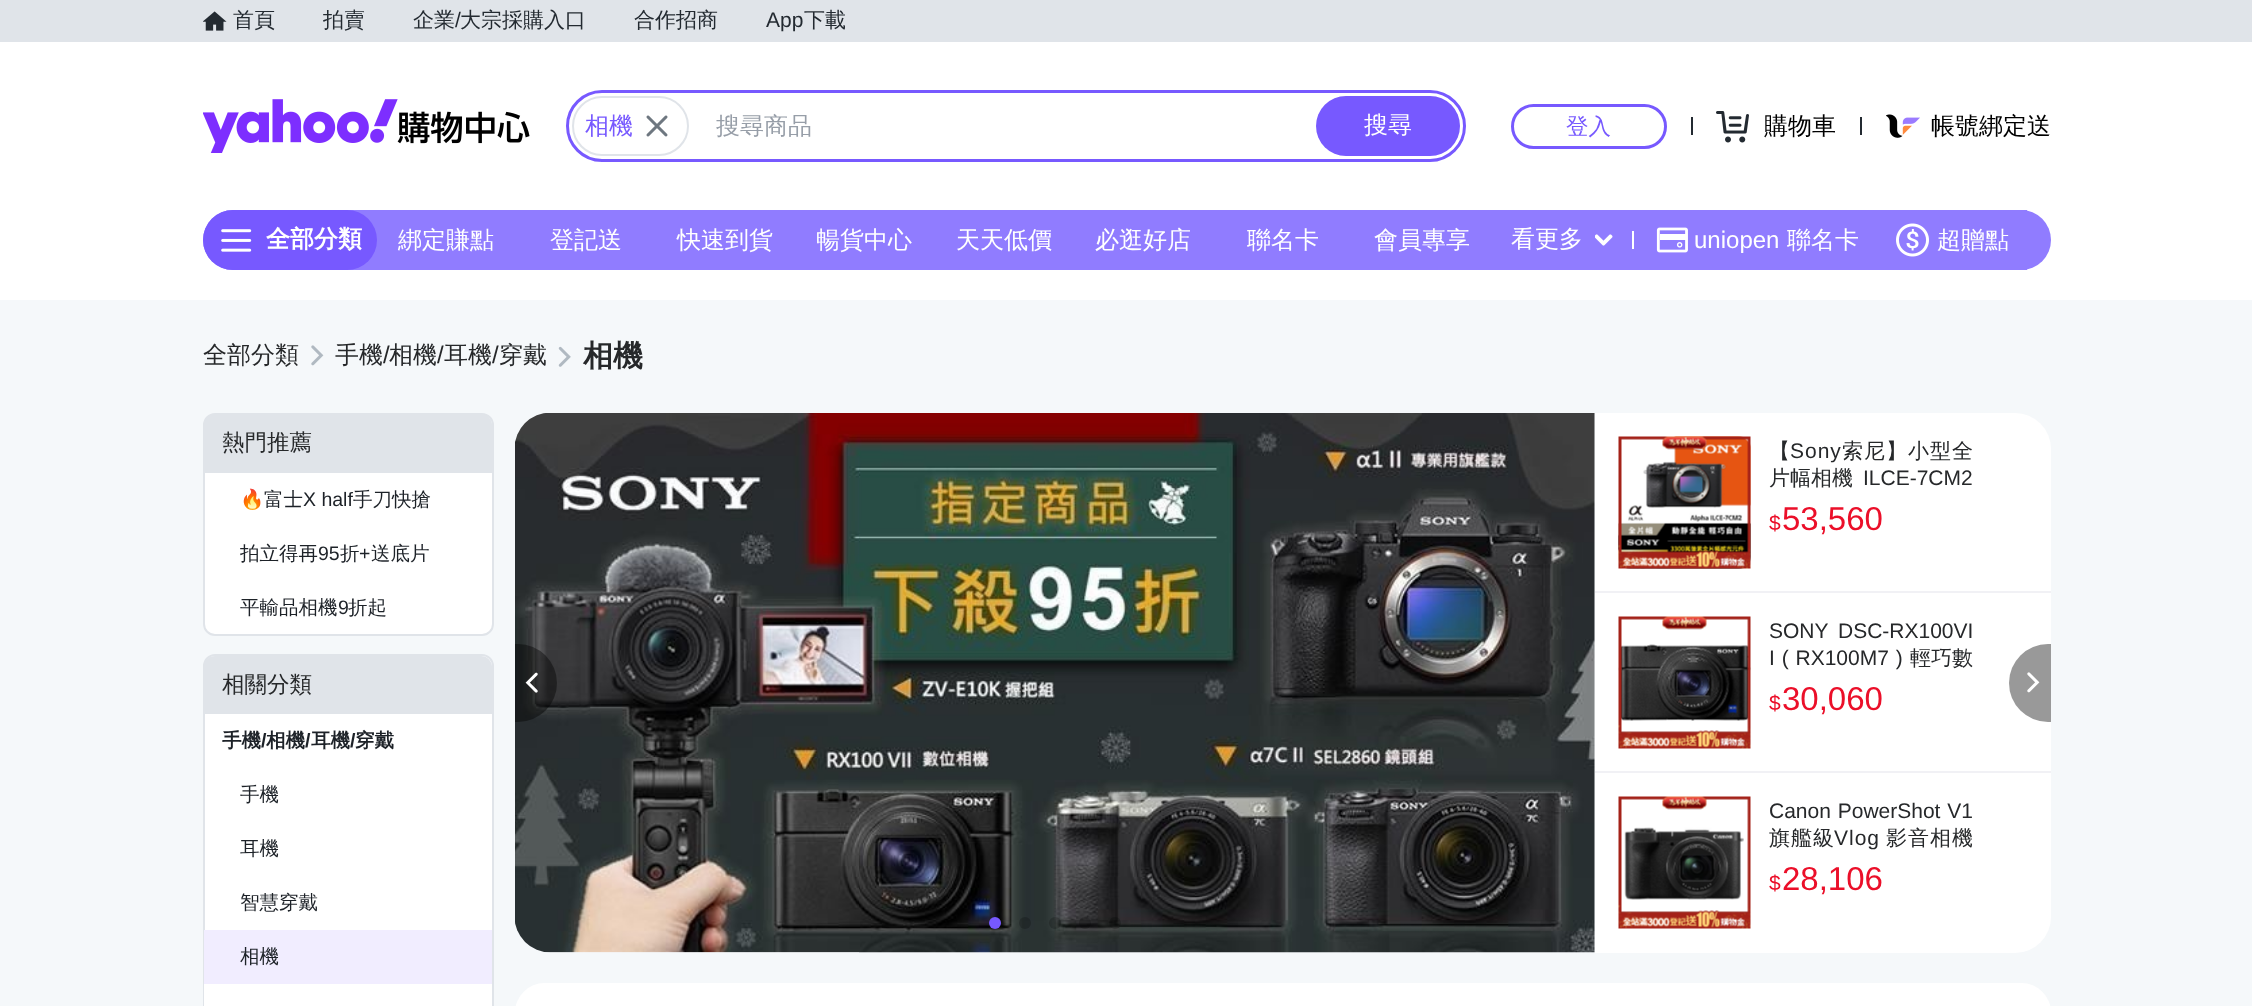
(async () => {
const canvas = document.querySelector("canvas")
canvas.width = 2252
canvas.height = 1006
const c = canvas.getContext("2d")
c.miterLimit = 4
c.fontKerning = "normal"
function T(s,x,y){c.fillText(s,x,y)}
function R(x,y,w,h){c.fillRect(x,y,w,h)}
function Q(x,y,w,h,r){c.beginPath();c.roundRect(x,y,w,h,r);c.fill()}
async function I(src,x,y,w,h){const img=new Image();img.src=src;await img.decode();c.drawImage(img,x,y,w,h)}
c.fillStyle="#fff"
R(0,0,2252,1006)
c.fillStyle="#e0e4e9"
R(0,0,2252,42)
await I("1.png",203,11,24,20)
c.font="500 21px WenQuanYi Zen Hei"
c.fillStyle="#232a31"
T("首頁",233,27)
T("拍賣",323,27)
T("企業",413,27)
c.font="21px Liberation Sans"
T("/",455,27)
c.font="500 21px WenQuanYi Zen Hei"
T("大宗採購入口",460,27)
T("合作招商",634,27)
c.font="21px Liberation Sans"
T("App",766,27)
c.font="500 21px WenQuanYi Zen Hei"
T("下載",804,27)
await I("2.png",203,99,327,54)
c.beginPath()
c.roundRect(567.5,91.5,897,69,34.5)
c.strokeStyle="#7759ff"
c.lineWidth=3
c.stroke()
c.beginPath()
c.roundRect(573,97,115,58,29)
c.strokeStyle="#e0e4e9"
c.lineWidth=2
c.stroke()
c.font="500 24px WenQuanYi Zen Hei"
c.fillStyle="#7759ff"
T("相機",585,134)
await I("3.png",646,115,22,22)
c.fillStyle="#979ea8"
T("搜尋商品",716,134)
c.fillStyle="#7759ff"
Q(1316,96,144,60,30)
c.fillStyle="#fff"
T("搜尋",1364,133)
c.beginPath()
c.roundRect(1512.5,105.5,153,42,21)
c.strokeStyle="#7759ff"
c.lineWidth=3
c.stroke()
c.font="500 22.5px WenQuanYi Zen Hei"
c.fillStyle="#7759ff"
T("登入",1566,134)
c.fillStyle="#232a31"
R(1691,117,2,18)
await I("4.png",1716,111,33,32)
c.font="500 24px WenQuanYi Zen Hei"
c.fillStyle="#000"
T("購物車",1764,134)
c.fillStyle="#232a31"
R(1860,117,2,18)
await I("5.png",1886,114,34,24)
c.fillStyle="#000"
T("帳號綁定送",1931,134)
c.fillStyle="#907cff"
Q(203,210,1848,60,30)
c.fillStyle="#7759ff"
Q(203,210,174,60,30)
await I("6.png",221,229,31,23)
c.font="bold 24px WenQuanYi Zen Hei"
c.fillStyle="#fff"
T("全部分類",266,247)
c.font="500 24px WenQuanYi Zen Hei"
T("綁定賺點",398,248)
T("登記送",550,248)
T("快速到貨",677,248)
T("暢貨中心",816,248)
T("天天低價",956,248)
T("必逛好店",1095,248)
T("聯名卡",1247,248)
T("會員專享",1374,248)
T("看更多",1511,247)
await I("7.png",1595,234,18,12)
R(1632,231,2,18)
await I("8.png",1656,227,32,26)
c.font="24px Liberation Sans"
T("uniopen",1694,248)
c.font="500 24px WenQuanYi Zen Hei"
T("聯名卡",1787,248)
c.fillStyle="#907cff"
R(2021,210,6,60)
await I("9.png",1896,223,33,34)
c.fillStyle="#fff"
T("超贈點",1937,248)
c.fillStyle="#f5f8fa"
R(0,300,2252,706)
await I("10.png",311,345,13,21)
c.fillStyle="#26282a"
T("全部分類",203,363)
T("手機",335,363)
c.font="24px Liberation Sans"
T("/",383,363)
c.font="500 24px WenQuanYi Zen Hei"
T("相機",389,363)
c.font="24px Liberation Sans"
T("/",437,363)
c.font="500 24px WenQuanYi Zen Hei"
T("耳機",444,363)
c.font="24px Liberation Sans"
T("/",492,363)
c.font="500 24px WenQuanYi Zen Hei"
T("穿戴",499,363)
await I("11.png",558,346,13,21)
c.font="bold 30px WenQuanYi Zen Hei"
T("相機",583,366)
c.fillStyle="#fff"
c.beginPath()
c.roundRect(204,414,289,221,11)
c.fill()
c.strokeStyle="#e0e4e9"
c.lineWidth=2
c.stroke()
c.fillStyle="#e0e4e9"
c.beginPath()
c.roundRect(204,414,288,59,[11,11,0,0])
c.fill()
c.font="500 22.5px WenQuanYi Zen Hei"
c.fillStyle="#26282a"
T("熱門推薦",222,450)
c.font="19.5px Noto Color Emoji"
c.fillStyle="#1d2228"
T("🔥",240,506)
c.font="500 19.5px WenQuanYi Zen Hei"
T("富士",264,506)
c.font="19.5px Liberation Sans"
T("X half",303,506)
c.font="500 19.5px WenQuanYi Zen Hei"
T("手刀快搶",353,506)
T("拍立得再",240,560)
c.font="19.5px Liberation Sans"
T("95",318,560)
c.font="500 19.5px WenQuanYi Zen Hei"
T("折",340,560)
c.font="19.5px Liberation Sans"
T("+",359,560)
c.font="500 19.5px WenQuanYi Zen Hei"
T("送底片",371,560)
T("平輸品相機",240,614)
c.font="19.5px Liberation Sans"
T("9",338,614)
c.font="500 19.5px WenQuanYi Zen Hei"
T("折起",348,614)
c.fillStyle="#fff"
c.beginPath()
c.roundRect(204,655,289,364,11)
c.fill()
c.stroke()
c.fillStyle="#e0e4e9"
c.beginPath()
c.roundRect(204,656,288,58,[11,11,0,0])
c.fill()
c.font="500 22.5px WenQuanYi Zen Hei"
c.fillStyle="#26282a"
T("相關分類",222,692)
c.font="bold 19.5px WenQuanYi Zen Hei"
c.fillStyle="#1d2228"
T("手機",222,747)
c.font="bold 19.5px Liberation Sans"
T("/",261,747)
c.font="bold 19.5px WenQuanYi Zen Hei"
T("相機",266,747)
c.font="bold 19.5px Liberation Sans"
T("/",305,747)
c.font="bold 19.5px WenQuanYi Zen Hei"
T("耳機",311,747)
c.font="bold 19.5px Liberation Sans"
T("/",350,747)
c.font="bold 19.5px WenQuanYi Zen Hei"
T("穿戴",355,747)
c.font="500 19.5px WenQuanYi Zen Hei"
T("手機",240,801)
T("耳機",240,855)
T("智慧穿戴",240,909)
c.fillStyle="#f1edff"
R(204,930,288,54)
c.fillStyle="#1d2228"
T("相機",240,963)
c.fillStyle="#fff"
R(204,984,1,22)
await I("13.png",515,413,1080,540)
c.fillStyle="#00000066"
c.beginPath()
c.roundRect(515,644,42,78,[0,39,39,0])
c.fill()
await I("12.png",525,672,13,21)
c.fillStyle="#fff"
c.beginPath()
c.roundRect(1595,413,456,540,[0,36,36,0])
c.fill()
c.fillStyle="#f1f1f5"
R(1595,591,456,2)
await I("14.png",1618,436,133,133)
await I("15.png",1618,436,133,133)
c.letterSpacing="1px"
c.font="500 21px WenQuanYi Zen Hei"
c.fillStyle="#26282a"
T("【",1769,458)
c.font="21px Liberation Sans"
T("Sony",1790,458)
c.font="500 21px WenQuanYi Zen Hei"
T("索尼】小型全",1842,458)
c.letterSpacing="0px"
T("片幅相機",1769,485)
c.font="21px Liberation Sans"
T("ILCE-7CM2",1863,485)
c.fillStyle="#eb0f29"
T("$",1769,530)
c.font="33px Liberation Sans"
T("53,560",1782,530)
c.fillStyle="#f1f1f5"
R(1595,771,456,2)
await I("17.png",1618,644,133,77)
await I("16.png",1618,616,133,133)
c.wordSpacing="4px"
c.font="21px Liberation Sans"
c.fillStyle="#26282a"
T("SONY DSC-RX100VI",1769,638)
c.wordSpacing="1px"
T("I ( RX100M7 )",1769,665)
c.wordSpacing="0px"
c.font="500 21px WenQuanYi Zen Hei"
T("輕巧數",1910,665)
c.font="21px Liberation Sans"
c.fillStyle="#eb0f29"
T("$",1769,710)
c.font="33px Liberation Sans"
T("30,060",1782,710)
await I("19.png",1624,827,120,73)
await I("18.png",1618,796,133,133)
c.wordSpacing="1px"
c.font="21px Liberation Sans"
c.fillStyle="#26282a"
T("Canon PowerShot V1",1769,818)
c.letterSpacing="1px"
c.wordSpacing="0px"
c.font="500 21px WenQuanYi Zen Hei"
T("旗艦級",1769,845)
c.font="21px Liberation Sans"
T("Vlog",1834,845)
c.font="500 21px WenQuanYi Zen Hei"
T("影音相機",1886,845)
c.letterSpacing="0px"
c.font="21px Liberation Sans"
c.fillStyle="#eb0f29"
T("$",1769,890)
c.font="33px Liberation Sans"
T("28,106",1782,890)
c.fillStyle="#999"
c.beginPath()
c.roundRect(2009,644,42,78,[39,0,0,39])
c.fill()
await I("20.png",2027,672,13,21)
c.fillStyle="#7759ff"
c.beginPath()
c.arc(995,923,6,0,7)
c.fill()
c.fillStyle="#00000033"
c.beginPath()
c.arc(1025,923,6,0,7)
c.fill()
c.beginPath()
c.arc(1055,923,6,0,7)
c.fill()
c.beginPath()
c.arc(1085,923,6,0,7)
c.fill()
c.beginPath()
c.arc(1115,923,6,0,7)
c.fill()
c.fillStyle="#fff"
Q(515,983,1536,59,36)
})()
